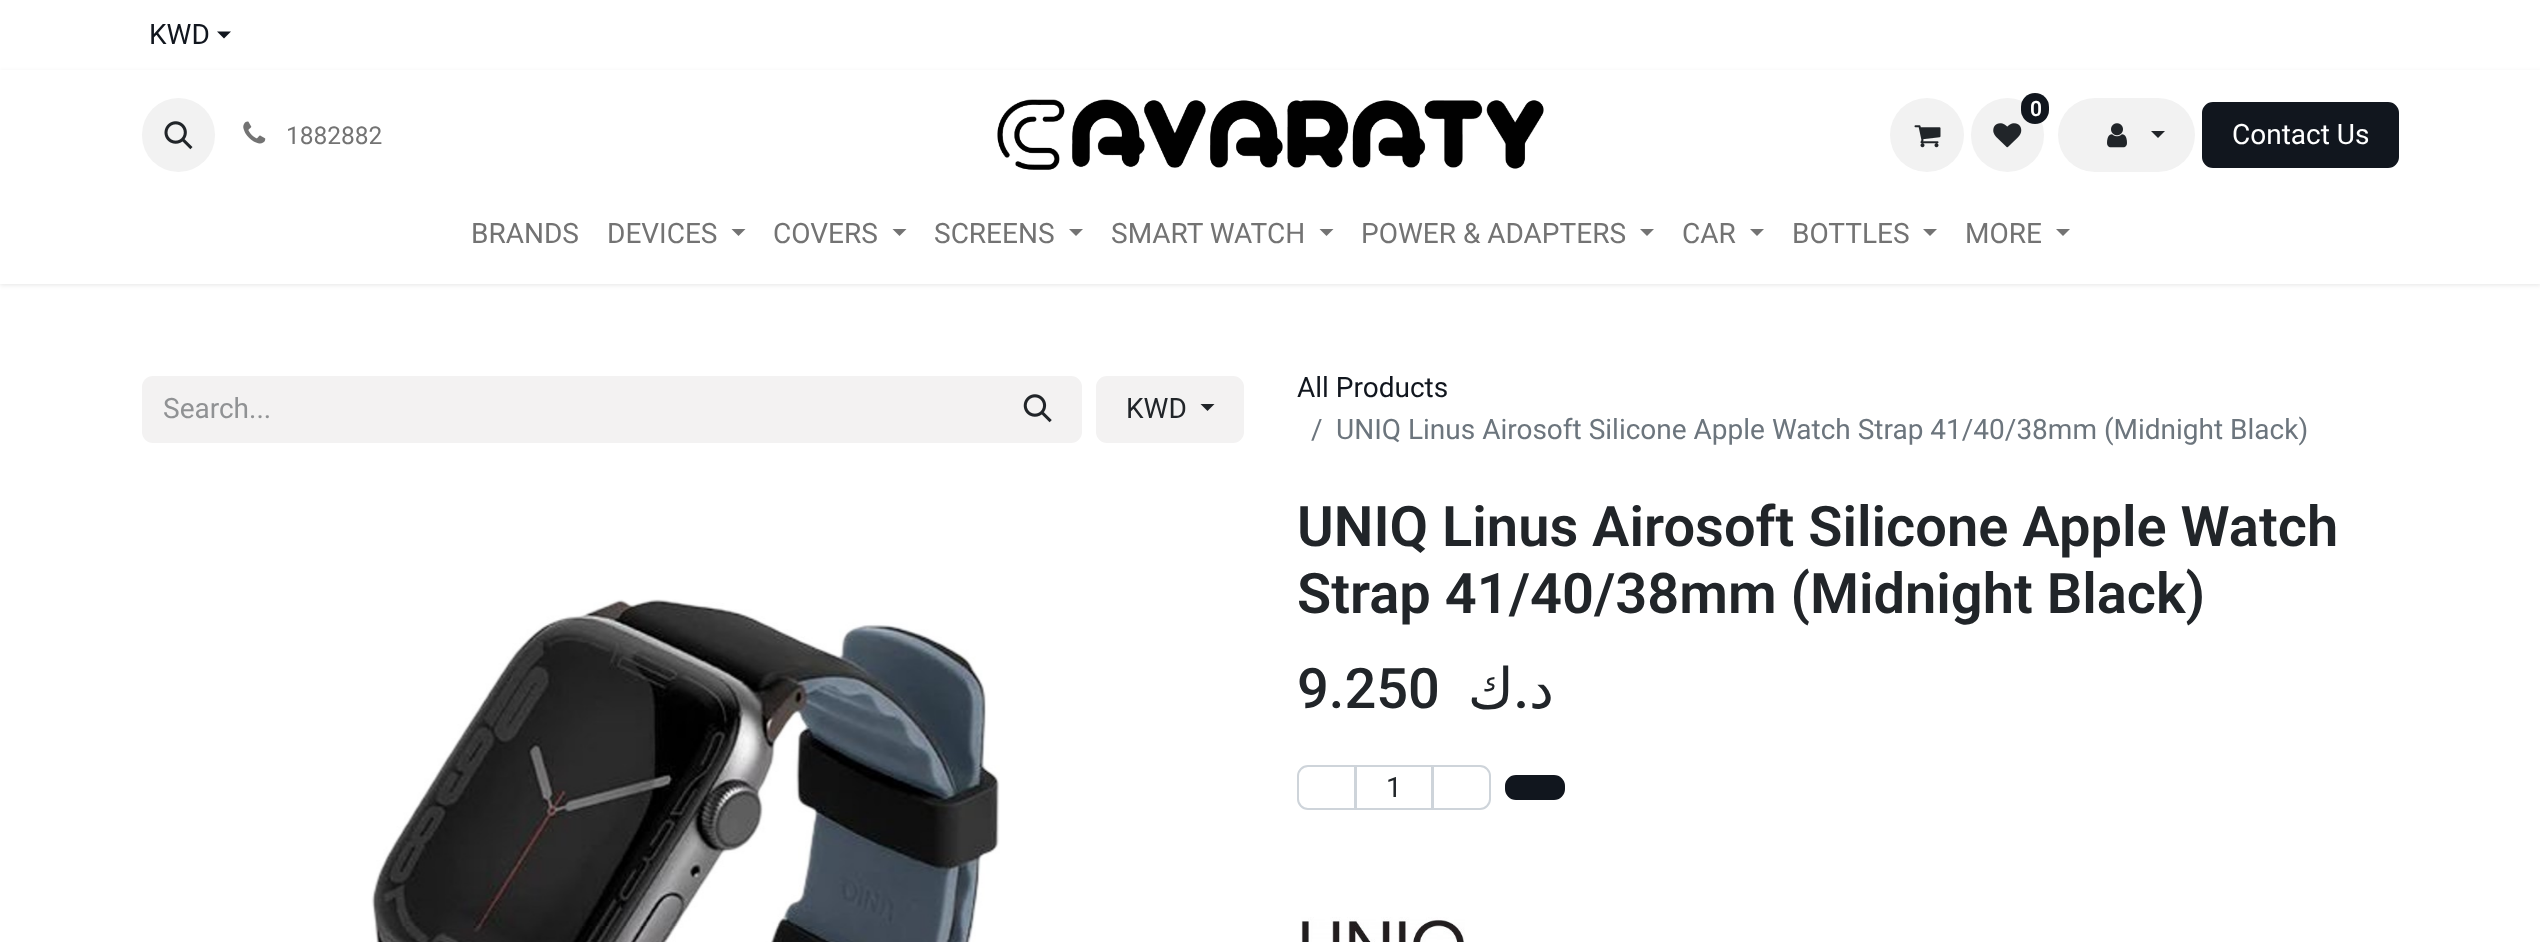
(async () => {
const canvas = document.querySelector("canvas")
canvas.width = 2540
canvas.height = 942
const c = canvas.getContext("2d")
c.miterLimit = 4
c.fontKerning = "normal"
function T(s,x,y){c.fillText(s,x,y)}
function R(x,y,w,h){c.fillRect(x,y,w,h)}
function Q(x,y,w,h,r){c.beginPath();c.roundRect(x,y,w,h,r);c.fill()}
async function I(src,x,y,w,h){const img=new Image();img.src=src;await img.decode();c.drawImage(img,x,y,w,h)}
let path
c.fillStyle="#fff"
R(0,0,2540,942)
c.font="28px Roboto"
c.fillStyle="#11161e"
T("KWD",149,44)
path = new Path2D("M217 31.5h14l-7 7z")
c.fill(path)
c.fillStyle="#0000001a"
c.filter="blur(2.5px)"
c.beginPath()
c.rect(0,72,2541,213)
c.fill()
c.filter="none"
c.fillStyle="#fff"
R(0,70,2540,214)
c.fillStyle="#f2f2f2"
Q(142,98,73,74,36.5)
await I("1.png",164,121,29,29)
await I("2.png",243,121,23,23)
c.font="24.5px Roboto"
c.fillStyle="#737373"
T("1882882",286,144)
await I("3.png",997,99,547,71)
c.fillStyle="#f2f2f2"
c.beginPath()
c.arc(1927,135,37,0,7)
c.fill()
await I("4.png",1914,125,27,23)
Q(1971,98,73,74,36.5)
await I("5.png",1993,123,29,25)
c.fillStyle="#11161e"
Q(2021,93,28,31,14)
c.font="600 21px Roboto"
c.fillStyle="#fff"
T("0",2030,116)
c.fillStyle="#f2f2f2"
Q(2058,98,137,74,37)
await I("6.png",2107,123,20,25)
c.fillStyle="#212529"
path = new Path2D("M2151 131h14l-7 7z")
c.fill(path)
c.fillStyle="#11161e"
c.beginPath()
c.roundRect(2203,103,195,64,10)
c.fill()
c.strokeStyle="#11161e"
c.lineWidth=2
c.stroke()
c.font="28px Roboto"
c.fillStyle="#fff"
T("Contact Us",2232,144)
c.fillStyle="#737373"
T("BRANDS",471,243)
T("DEVICES",607,243)
path = new Path2D("M731.5 229h14l-7 7z")
c.fill(path)
T("COVERS",773,243)
path = new Path2D("M892.5 229h14l-7 7z")
c.fill(path)
T("SCREENS",934,243)
path = new Path2D("M1069 229h14l-7 7z")
c.fill(path)
T("SMART WATCH",1111,243)
path = new Path2D("M1319.5 229h14l-7 7z")
c.fill(path)
T("POWER & ADAPTERS",1361,243)
path = new Path2D("M1640 229h14l-7 7z")
c.fill(path)
T("CAR",1682,243)
path = new Path2D("M1750 229h14l-7 7z")
c.fill(path)
T("BOTTLES",1792,243)
path = new Path2D("M1923 229h14l-7 7z")
c.fill(path)
T("MORE",1965,243)
path = new Path2D("M2056 229h14l-7 7z")
c.fill(path)
c.fillStyle="#f3f2f2"
c.beginPath()
c.roundRect(142,376,854,67,[11,0,0,11])
c.fill()
c.fillStyle="#909294"
T("Search...",163,418)
c.fillStyle="#f3f2f2"
c.beginPath()
c.roundRect(995,377,86,65,[0,10,10,0])
c.fill()
c.strokeStyle="#f3f2f2"
c.stroke()
await I("7.png",1023,394,29,29)
c.beginPath()
c.roundRect(1097,377,146,65,10)
c.fill()
c.stroke()
c.fillStyle="#212529"
T("KWD",1126,418)
path = new Path2D("M1200.5 404h14l-7 7z")
c.fill(path)
c.fillStyle="#11161e"
T("All Products",1297,397)
c.fillStyle="#6c757d"
T("/",1311,439)
T("UNIQ Linus Airosoft Silicone Apple Watch Strap 41/40/38mm (Midnight Black)",1336,439)
await I("8.png",371,599,629,343)
c.font="600 56px Roboto"
c.fillStyle="#212529"
T("UNIQ Linus Airosoft Silicone Apple Watch",1297,546)
T("Strap 41/40/38mm (Midnight Black)",1297,613)
c.font="500 56px Roboto"
T("9.250",1297,708)
c.direction="rtl"
c.font="56px DejaVu Sans"
T("ك",1514,708)
c.font="500 56px Roboto"
T(".",1529,708)
c.font="56px DejaVu Sans"
T("د",1554,708)
c.strokeStyle="#ced4da"
c.strokeRect(1356,766,76,43)
c.beginPath()
c.roundRect(1298,766,57,43,[10,0,0,10])
c.stroke()
c.direction="ltr"
c.font="28px Roboto"
T("1",1386,797)
c.beginPath()
c.roundRect(1433,766,57,43,[0,10,10,0])
c.stroke()
c.fillStyle="#11161e"
c.beginPath()
c.roundRect(1506,776,58,23,10)
c.fill()
c.strokeStyle="#11161e"
c.stroke()
await I("9.png",1301,917,164,25)
})()
